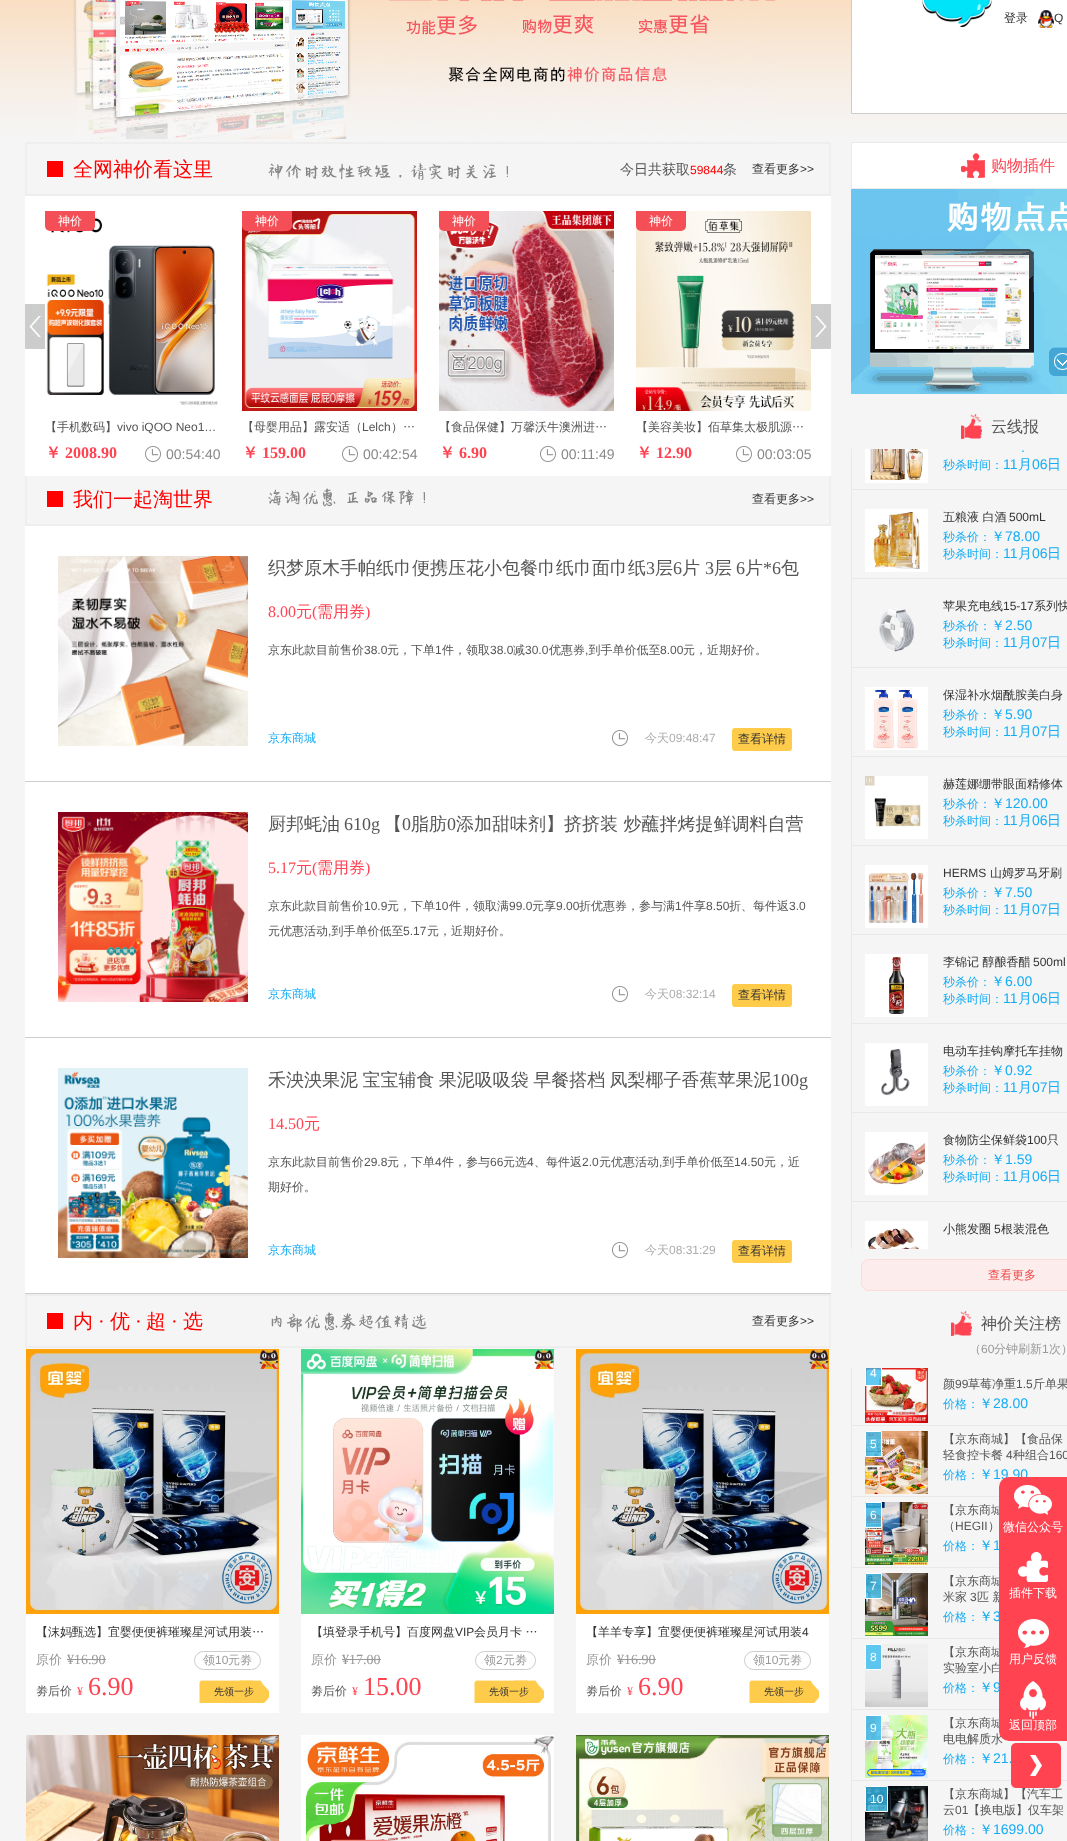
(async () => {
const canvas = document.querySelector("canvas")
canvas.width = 1067
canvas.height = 1841
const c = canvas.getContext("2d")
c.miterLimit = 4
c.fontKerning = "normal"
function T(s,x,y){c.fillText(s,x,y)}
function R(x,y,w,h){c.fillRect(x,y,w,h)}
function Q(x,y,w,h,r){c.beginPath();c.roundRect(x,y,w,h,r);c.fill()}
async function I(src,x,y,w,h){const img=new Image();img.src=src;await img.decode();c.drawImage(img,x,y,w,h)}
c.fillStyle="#f5f5f5"
R(0,0,1067,1841)
await I("1.png",0,0,1067,142)
await I("2.png",73,0,703,139)
c.fillStyle="#fff"
c.beginPath()
c.rect(851.5,-.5,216,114)
c.fill()
c.strokeStyle="#ccc"
c.stroke()
await I("3.png",922,0,70,27)
c.font="500 12px WenQuanYi Zen Hei"
c.fillStyle="#333"
T("登录",1004,22)
await I("4.png",1038,10,16,18)
c.font="12px Liberation Sans"
T("Q",1054,22)
await I("5.png",268,163,240,17)
c.strokeStyle="#eee"
c.lineWidth=2
c.strokeRect(26,143,804,52)
c.fillStyle="#f00"
R(47,161,16,16)
c.font="500 20px WenQuanYi Zen Hei"
T("全网神价看这里",73,176)
c.font="500 14px WenQuanYi Zen Hei"
c.fillStyle="#555"
T("今日共获取",620,174)
c.font="12px Liberation Sans"
c.fillStyle="#f00"
T("59844",690,174)
c.font="500 14px WenQuanYi Zen Hei"
c.fillStyle="#555"
T("条",723,174)
c.font="500 12px WenQuanYi Zen Hei"
c.fillStyle="#333"
T("查看更多",752,173)
c.font="12px Liberation Sans"
T(">>",800,173)
await I("13.png",268,488,157,19)
c.strokeRect(26,473,804,52)
c.fillStyle="#fff"
R(25,196,806,280)
await I("6.png",25,304,20,45)
await I("7.png",46,218,172,187)
c.fillStyle="#f44f56"
c.beginPath()
c.roundRect(45,211,50,20,[0,0,5,5])
c.fill()
c.font="500 12px WenQuanYi Zen Hei"
c.fillStyle="#fff"
T("神价",58,225)
c.fillStyle="#555"
T("【手机数码】",45,431)
c.font="12px Liberation Sans"
T("vivo iQOO Neo1…",117,431)
c.font="bold 16px WenQuanYi Zen Hei"
c.fillStyle="#ff4351"
T("￥",45,458)
c.font="bold 16px Liberation Serif"
T("2008.90",65,458)
await I("8.png",145,446,16,16)
c.font="14px Liberation Sans"
c.fillStyle="#888"
T("00:54:40",166,459)
await I("9.png",242,211,175,200)
c.fillStyle="#f44f56"
c.beginPath()
c.roundRect(242,211,50,20,[0,0,5,5])
c.fill()
c.font="500 12px WenQuanYi Zen Hei"
c.fillStyle="#fff"
T("神价",255,225)
c.fillStyle="#555"
T("【母婴用品】露安适（",242,431)
c.font="12px Liberation Sans"
T("Lelch",362,431)
c.font="500 12px WenQuanYi Zen Hei"
T("）…",391,431)
c.font="bold 16px WenQuanYi Zen Hei"
c.fillStyle="#ff4351"
T("￥",242,458)
c.font="bold 16px Liberation Serif"
T("159.00",262,458)
await I("8.png",342,446,16,16)
c.font="14px Liberation Sans"
c.fillStyle="#888"
T("00:42:54",363,459)
await I("10.png",439,211,175,200)
c.fillStyle="#f44f56"
c.beginPath()
c.roundRect(439,211,50,20,[0,0,5,5])
c.fill()
c.font="500 12px WenQuanYi Zen Hei"
c.fillStyle="#fff"
T("神价",452,225)
c.fillStyle="#555"
T("【食品保健】万馨沃牛澳洲进…",439,431)
c.font="bold 16px WenQuanYi Zen Hei"
c.fillStyle="#ff4351"
T("￥",439,458)
c.font="bold 16px Liberation Serif"
T("6.90",459,458)
await I("8.png",540,446,16,16)
c.font="14px Liberation Sans"
c.fillStyle="#888"
T("00:11:49",561,459)
await I("11.png",636,211,175,200)
c.fillStyle="#f44f56"
c.beginPath()
c.roundRect(636,211,50,20,[0,0,5,5])
c.fill()
c.font="500 12px WenQuanYi Zen Hei"
c.fillStyle="#fff"
T("神价",649,225)
c.fillStyle="#555"
T("【美容美妆】佰草集太极肌源…",636,431)
c.font="bold 16px WenQuanYi Zen Hei"
c.fillStyle="#ff4351"
T("￥",636,458)
c.font="bold 16px Liberation Serif"
T("12.90",656,458)
await I("8.png",736,446,16,16)
c.font="14px Liberation Sans"
c.fillStyle="#888"
T("00:03:05",757,459)
await I("12.png",811,304,20,45)
c.fillStyle="#f00"
R(47,491,16,16)
c.font="500 20px WenQuanYi Zen Hei"
T("我们一起淘世界",73,506)
c.font="500 12px WenQuanYi Zen Hei"
c.fillStyle="#333"
T("查看更多",752,503)
c.font="12px Liberation Sans"
T(">>",800,503)
c.fillStyle="#fff"
R(25,526,806,255)
c.fillStyle="#ccc"
R(25,781,806,1)
await I("14.png",58,556,190,190)
c.font="500 18px WenQuanYi Zen Hei"
c.fillStyle="#555"
T("织梦原木手帕纸巾便携压花小包餐巾纸巾面巾纸",268,574)
c.font="18px Liberation Serif"
T("3",646,574)
c.font="500 18px WenQuanYi Zen Hei"
T("层",655,574)
c.font="18px Liberation Serif"
T("6",673,574)
c.font="500 18px WenQuanYi Zen Hei"
T("片",682,574)
c.font="18px Liberation Serif"
T("3",705,574)
c.font="500 18px WenQuanYi Zen Hei"
T("层",714,574)
c.font="18px Liberation Serif"
T("6",736,574)
c.font="500 18px WenQuanYi Zen Hei"
T("片",745,574)
c.font="18px Liberation Serif"
T("*6",763,574)
c.font="500 18px WenQuanYi Zen Hei"
T("包",781,574)
c.font="16px Liberation Serif"
c.fillStyle="#ff4351"
T("8.00",268,617)
c.font="500 16px WenQuanYi Zen Hei"
T("元",296,617)
c.font="16px Liberation Serif"
T("(",312,617)
c.font="500 16px WenQuanYi Zen Hei"
T("需用券",317,617)
c.font="16px Liberation Serif"
T(")",365,617)
c.font="500 12px WenQuanYi Zen Hei"
c.fillStyle="#555"
T("京东此款目前售价",268,654)
c.font="12px Liberation Sans"
T("38.0",364,654)
c.font="500 12px WenQuanYi Zen Hei"
T("元，下单",387,654)
c.font="12px Liberation Sans"
T("1",435,654)
c.font="500 12px WenQuanYi Zen Hei"
T("件，领取",442,654)
c.font="12px Liberation Sans"
T("38.0",490,654)
c.font="500 12px WenQuanYi Zen Hei"
T("减",513,654)
c.font="12px Liberation Sans"
T("30.0",525,654)
c.font="500 12px WenQuanYi Zen Hei"
T("优惠券 到手单价低至",549,654)
c.font="12px Liberation Sans"
T("8.00",660,654)
c.font="500 12px WenQuanYi Zen Hei"
T("元，近期好价。",683,654)
c.font="12px Liberation Sans"
T(",",585,654)
c.font="500 12px WenQuanYi Zen Hei"
c.fillStyle="#13acf5"
T("京东商城",268,742)
await I("8.png",612,730,16,16)
c.fillStyle="#adadad"
T("今天",645,742)
c.font="12px Liberation Sans"
T("09:48:47",669,742)
c.fillStyle="#ffcb4b"
Q(732,728,60,23,3)
c.font="500 12px WenQuanYi Zen Hei"
c.fillStyle="#333"
T("查看详情",738,743)
c.fillStyle="#fff"
R(25,782,806,255)
c.fillStyle="#ccc"
R(25,1037,806,1)
await I("15.png",58,812,190,190)
c.font="500 18px WenQuanYi Zen Hei"
c.fillStyle="#555"
T("厨邦蚝油",268,830)
c.font="18px Liberation Serif"
T("610g",344,830)
c.font="500 18px WenQuanYi Zen Hei"
T("【",384,830)
c.font="18px Liberation Serif"
T("0",402,830)
c.font="500 18px WenQuanYi Zen Hei"
T("脂肪",411,830)
c.font="18px Liberation Serif"
T("0",447,830)
c.font="500 18px WenQuanYi Zen Hei"
T("添加甜味剂】挤挤装 炒蘸拌烤提鲜调料自营",456,830)
c.font="16px Liberation Serif"
c.fillStyle="#ff4351"
T("5.17",268,873)
c.font="500 16px WenQuanYi Zen Hei"
T("元",296,873)
c.font="16px Liberation Serif"
T("(",312,873)
c.font="500 16px WenQuanYi Zen Hei"
T("需用券",317,873)
c.font="16px Liberation Serif"
T(")",365,873)
c.font="500 12px WenQuanYi Zen Hei"
c.fillStyle="#555"
T("京东此款目前售价",268,910)
c.font="12px Liberation Sans"
T("10.9",364,910)
c.font="500 12px WenQuanYi Zen Hei"
T("元，下单",387,910)
c.font="12px Liberation Sans"
T("10",435,910)
c.font="500 12px WenQuanYi Zen Hei"
T("件，领取满",449,910)
c.font="12px Liberation Sans"
T("99.0",509,910)
c.font="500 12px WenQuanYi Zen Hei"
T("元享",532,910)
c.font="12px Liberation Sans"
T("9.00",556,910)
c.font="500 12px WenQuanYi Zen Hei"
T("折优惠券，参与满",579,910)
c.font="12px Liberation Sans"
T("1",675,910)
c.font="500 12px WenQuanYi Zen Hei"
T("件享",682,910)
c.font="12px Liberation Sans"
T("8.50",706,910)
c.font="500 12px WenQuanYi Zen Hei"
T("折、每件返",729,910)
c.font="12px Liberation Sans"
T("3.0",789,910)
c.font="500 12px WenQuanYi Zen Hei"
T("元优惠活动 到手单价低至",268,935)
c.font="12px Liberation Sans"
T("5.17",403,935)
c.font="500 12px WenQuanYi Zen Hei"
T("元，近期好价。",427,935)
c.font="12px Liberation Sans"
T(",",328,935)
c.font="500 12px WenQuanYi Zen Hei"
c.fillStyle="#13acf5"
T("京东商城",268,998)
await I("8.png",612,986,16,16)
c.fillStyle="#adadad"
T("今天",645,998)
c.font="12px Liberation Sans"
T("08:32:14",669,998)
c.fillStyle="#ffcb4b"
Q(732,984,60,23,3)
c.font="500 12px WenQuanYi Zen Hei"
c.fillStyle="#333"
T("查看详情",738,999)
c.fillStyle="#fff"
R(25,1038,806,255)
c.fillStyle="#ccc"
R(25,1293,806,1)
await I("16.png",58,1068,190,190)
c.wordSpacing="-1px"
c.font="500 18px WenQuanYi Zen Hei"
c.fillStyle="#555"
T("禾泱泱果泥 宝宝辅食 果泥吸吸袋 早餐搭档 凤梨椰子香蕉苹果泥",268,1086)
c.wordSpacing="0px"
c.font="18px Liberation Serif"
T("100g",772,1086)
c.font="16px Liberation Serif"
c.fillStyle="#ff4351"
T("14.50",268,1129)
c.font="500 16px WenQuanYi Zen Hei"
T("元",304,1129)
c.font="500 12px WenQuanYi Zen Hei"
c.fillStyle="#555"
T("京东此款目前售价",268,1166)
c.font="12px Liberation Sans"
T("29.8",364,1166)
c.font="500 12px WenQuanYi Zen Hei"
T("元，下单",387,1166)
c.font="12px Liberation Sans"
T("4",435,1166)
c.font="500 12px WenQuanYi Zen Hei"
T("件，参与",442,1166)
c.font="12px Liberation Sans"
T("66",490,1166)
c.font="500 12px WenQuanYi Zen Hei"
T("元选",503,1166)
c.font="12px Liberation Sans"
T("4",527,1166)
c.font="500 12px WenQuanYi Zen Hei"
T("、每件返",534,1166)
c.font="12px Liberation Sans"
T("2.0",582,1166)
c.font="500 12px WenQuanYi Zen Hei"
T("元优惠活动 到手单价低至",599,1166)
c.font="12px Liberation Sans"
T("14.50",734,1166)
c.font="500 12px WenQuanYi Zen Hei"
T("元，近",764,1166)
c.font="12px Liberation Sans"
T(",",659,1166)
c.font="500 12px WenQuanYi Zen Hei"
T("期好价。",268,1191)
c.fillStyle="#13acf5"
T("京东商城",268,1254)
await I("8.png",612,1242,16,16)
c.fillStyle="#adadad"
T("今天",645,1254)
c.font="12px Liberation Sans"
T("08:31:29",669,1254)
c.fillStyle="#ffcb4b"
Q(732,1240,60,23,3)
c.font="500 12px WenQuanYi Zen Hei"
c.fillStyle="#333"
T("查看详情",738,1255)
await I("17.png",271,1312,156,21)
c.strokeRect(26,1295,804,52)
c.fillStyle="#f00"
R(47,1313,16,16)
c.font="500 20px WenQuanYi Zen Hei"
T("内",73,1328)
c.font="20px Liberation Serif"
T("·",98,1328)
c.font="500 20px WenQuanYi Zen Hei"
T("优",110,1328)
c.font="20px Liberation Serif"
T("·",135,1328)
c.font="500 20px WenQuanYi Zen Hei"
T("超",146,1328)
c.font="20px Liberation Serif"
T("·",171,1328)
c.font="500 20px WenQuanYi Zen Hei"
T("选",183,1328)
c.font="500 12px WenQuanYi Zen Hei"
c.fillStyle="#333"
T("查看更多",752,1325)
c.font="12px Liberation Sans"
T(">>",800,1325)
await I("18.png",26,1349,253,265)
await I("19.png",259,1349,20,20)
c.fillStyle="#fff"
R(26,1614,253,99)
c.font="500 12px WenQuanYi Zen Hei"
c.fillStyle="#333"
T("【沫妈甄选】宜婴便便裤璀璨星河试用装…",36,1636)
c.font="500 13px WenQuanYi Zen Hei"
c.fillStyle="#999"
T("原价",36,1664)
c.font="14px Liberation Serif"
T("¥16.90",67,1664)
R(67,1659,39,1)
c.beginPath()
c.roundRect(194.5,1651.5,66,18,9)
c.strokeStyle="#ccc"
c.lineWidth=1
c.stroke()
c.font="500 12px WenQuanYi Zen Hei"
T("领",203,1664)
c.font="12px Liberation Sans"
T("10",215,1664)
c.font="500 12px WenQuanYi Zen Hei"
T("元劵",228,1664)
c.fillStyle="#555"
T("劵后价",36,1695)
c.font="12px Liberation Serif"
c.fillStyle="#ff4351"
T("¥",77,1695)
c.font="26px Liberation Serif"
T("6.90",88,1695)
await I("20.png",199,1680,70,23)
c.font="500 10px WenQuanYi Zen Hei"
c.fillStyle="#333"
T("先领一步",214,1695)
await I("21.png",301,1349,253,265)
await I("22.png",534,1349,20,20)
c.fillStyle="#fff"
R(301,1614,253,99)
c.font="500 12px WenQuanYi Zen Hei"
c.fillStyle="#333"
T("【填登录手机号】百度网盘",311,1636)
c.font="12px Liberation Sans"
T("VIP",455,1636)
c.font="500 12px WenQuanYi Zen Hei"
T("会员月卡 …",474,1636)
c.font="500 13px WenQuanYi Zen Hei"
c.fillStyle="#999"
T("原价",311,1664)
c.font="14px Liberation Serif"
T("¥17.00",342,1664)
R(342,1659,39,1)
c.beginPath()
c.roundRect(475.5,1651.5,60,18,9)
c.stroke()
c.font="500 12px WenQuanYi Zen Hei"
T("领",484,1664)
c.font="12px Liberation Sans"
T("2",496,1664)
c.font="500 12px WenQuanYi Zen Hei"
T("元劵",503,1664)
c.fillStyle="#555"
T("劵后价",311,1695)
c.font="12px Liberation Serif"
c.fillStyle="#ff4351"
T("¥",352,1695)
c.font="26px Liberation Serif"
T("15.00",363,1695)
await I("20.png",474,1680,70,23)
c.font="500 10px WenQuanYi Zen Hei"
c.fillStyle="#333"
T("先领一步",489,1695)
await I("23.png",576,1349,253,265)
await I("19.png",809,1349,20,20)
c.fillStyle="#fff"
R(576,1614,253,99)
c.font="500 12px WenQuanYi Zen Hei"
c.fillStyle="#333"
T("【羊羊专享】宜婴便便裤璀璨星河试用装",586,1636)
c.font="12px Liberation Sans"
T("4",802,1636)
c.font="500 13px WenQuanYi Zen Hei"
c.fillStyle="#999"
T("原价",586,1664)
c.font="14px Liberation Serif"
T("¥16.90",617,1664)
R(617,1659,39,1)
c.beginPath()
c.roundRect(744.5,1651.5,66,18,9)
c.stroke()
c.font="500 12px WenQuanYi Zen Hei"
T("领",753,1664)
c.font="12px Liberation Sans"
T("10",765,1664)
c.font="500 12px WenQuanYi Zen Hei"
T("元劵",778,1664)
c.fillStyle="#555"
T("劵后价",586,1695)
c.font="12px Liberation Serif"
c.fillStyle="#ff4351"
T("¥",627,1695)
c.font="26px Liberation Serif"
T("6.90",638,1695)
await I("20.png",749,1680,70,23)
c.font="500 10px WenQuanYi Zen Hei"
c.fillStyle="#333"
T("先领一步",764,1695)
await I("24.png",26,1735,253,106)
await I("25.png",259,1735,20,19)
await I("26.png",301,1735,253,106)
await I("27.png",534,1735,20,19)
await I("28.png",576,1735,253,106)
await I("29.png",809,1735,20,19)
c.fillStyle="#fff"
c.beginPath()
c.rect(851.5,142.5,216,46)
c.fill()
c.strokeStyle="#e9e9e9"
c.stroke()
await I("30.png",961,153,24,25)
c.font="500 16px WenQuanYi Zen Hei"
c.fillStyle="#ff4351"
T("购物插件",991,171)
await I("31.png",851,189,216,205)
await I("32.png",961,414,21,25)
c.fillStyle="#555"
T("云线报",991,432)
c.fillStyle="#e9e9e9"
R(851,489,216,1)
R(851,449,1,41)
await I("33.png",865,449,63,34)
c.font="14px Liberation Sans"
c.fillStyle="#13acf5"
T(".",1021,452)
c.font="500 12px WenQuanYi Zen Hei"
T("秒杀时间：",943,469)
c.font="14px Liberation Sans"
T("11",1003,469)
c.font="500 14px WenQuanYi Zen Hei"
T("月",1018,469)
c.font="14px Liberation Sans"
T("06",1032,469)
c.font="500 14px WenQuanYi Zen Hei"
T("日",1047,469)
c.fillStyle="#e9e9e9"
R(851,578,216,1)
R(851,490,1,89)
await I("34.png",865,509,63,63)
c.font="500 12px WenQuanYi Zen Hei"
c.fillStyle="#333"
T("五粮液 白酒",943,521)
c.font="12px Liberation Sans"
T("500mL",1009,521)
c.font="500 12px WenQuanYi Zen Hei"
c.fillStyle="#13acf5"
T("秒杀价：",943,541)
c.font="500 14px WenQuanYi Zen Hei"
T("￥",991,541)
c.font="14px Liberation Sans"
T("78.00",1005,541)
c.font="500 12px WenQuanYi Zen Hei"
T("秒杀时间：",943,558)
c.font="14px Liberation Sans"
T("11",1003,558)
c.font="500 14px WenQuanYi Zen Hei"
T("月",1018,558)
c.font="14px Liberation Sans"
T("06",1032,558)
c.font="500 14px WenQuanYi Zen Hei"
T("日",1047,558)
c.fillStyle="#e9e9e9"
R(851,667,216,1)
R(851,579,1,89)
await I("35.png",879,607,35,45)
c.font="500 12px WenQuanYi Zen Hei"
c.fillStyle="#333"
T("苹果充电线",943,610)
c.font="12px Liberation Sans"
T("15-17",1003,610)
c.font="500 12px WenQuanYi Zen Hei"
T("系列快",1034,610)
c.fillStyle="#13acf5"
T("秒杀价：",943,630)
c.font="500 14px WenQuanYi Zen Hei"
T("￥",991,630)
c.font="14px Liberation Sans"
T("2.50",1005,630)
c.font="500 12px WenQuanYi Zen Hei"
T("秒杀时间：",943,647)
c.font="14px Liberation Sans"
T("11",1003,647)
c.font="500 14px WenQuanYi Zen Hei"
T("月",1018,647)
c.font="14px Liberation Sans"
T("07",1032,647)
c.font="500 14px WenQuanYi Zen Hei"
T("日",1047,647)
c.fillStyle="#e9e9e9"
R(851,756,216,1)
R(851,668,1,89)
await I("36.png",865,687,63,63)
c.font="500 12px WenQuanYi Zen Hei"
c.fillStyle="#333"
T("保湿补水烟酰胺美白身",943,699)
c.fillStyle="#13acf5"
T("秒杀价：",943,719)
c.font="500 14px WenQuanYi Zen Hei"
T("￥",991,719)
c.font="14px Liberation Sans"
T("5.90",1005,719)
c.font="500 12px WenQuanYi Zen Hei"
T("秒杀时间：",943,736)
c.font="14px Liberation Sans"
T("11",1003,736)
c.font="500 14px WenQuanYi Zen Hei"
T("月",1018,736)
c.font="14px Liberation Sans"
T("07",1032,736)
c.font="500 14px WenQuanYi Zen Hei"
T("日",1047,736)
c.fillStyle="#e9e9e9"
R(851,845,216,1)
R(851,757,1,89)
await I("37.png",865,776,63,63)
c.font="500 12px WenQuanYi Zen Hei"
c.fillStyle="#333"
T("赫莲娜绷带眼面精修体",943,788)
c.fillStyle="#13acf5"
T("秒杀价：",943,808)
c.font="500 14px WenQuanYi Zen Hei"
T("￥",991,808)
c.font="14px Liberation Sans"
T("120.00",1005,808)
c.font="500 12px WenQuanYi Zen Hei"
T("秒杀时间：",943,825)
c.font="14px Liberation Sans"
T("11",1003,825)
c.font="500 14px WenQuanYi Zen Hei"
T("月",1018,825)
c.font="14px Liberation Sans"
T("06",1032,825)
c.font="500 14px WenQuanYi Zen Hei"
T("日",1047,825)
c.fillStyle="#e9e9e9"
R(851,934,216,1)
R(851,846,1,89)
await I("38.png",865,865,63,63)
c.font="12px Liberation Sans"
c.fillStyle="#333"
T("HERMS",943,877)
c.font="500 12px WenQuanYi Zen Hei"
T("山姆罗马牙刷",990,877)
c.fillStyle="#13acf5"
T("秒杀价：",943,897)
c.font="500 14px WenQuanYi Zen Hei"
T("￥",991,897)
c.font="14px Liberation Sans"
T("7.50",1005,897)
c.font="500 12px WenQuanYi Zen Hei"
T("秒杀时间：",943,914)
c.font="14px Liberation Sans"
T("11",1003,914)
c.font="500 14px WenQuanYi Zen Hei"
T("月",1018,914)
c.font="14px Liberation Sans"
T("07",1032,914)
c.font="500 14px WenQuanYi Zen Hei"
T("日",1047,914)
c.fillStyle="#e9e9e9"
R(851,1023,216,1)
R(851,935,1,89)
await I("39.png",865,954,63,63)
c.font="500 12px WenQuanYi Zen Hei"
c.fillStyle="#333"
T("李锦记 醇酿香醋",943,966)
c.font="12px Liberation Sans"
T("500ml",1033,966)
c.font="500 12px WenQuanYi Zen Hei"
c.fillStyle="#13acf5"
T("秒杀价：",943,986)
c.font="500 14px WenQuanYi Zen Hei"
T("￥",991,986)
c.font="14px Liberation Sans"
T("6.00",1005,986)
c.font="500 12px WenQuanYi Zen Hei"
T("秒杀时间：",943,1003)
c.font="14px Liberation Sans"
T("11",1003,1003)
c.font="500 14px WenQuanYi Zen Hei"
T("月",1018,1003)
c.font="14px Liberation Sans"
T("06",1032,1003)
c.font="500 14px WenQuanYi Zen Hei"
T("日",1047,1003)
c.fillStyle="#e9e9e9"
R(851,1112,216,1)
R(851,1024,1,89)
await I("40.png",865,1043,63,63)
c.font="500 12px WenQuanYi Zen Hei"
c.fillStyle="#333"
T("电动车挂钩摩托车挂物",943,1055)
c.fillStyle="#13acf5"
T("秒杀价：",943,1075)
c.font="500 14px WenQuanYi Zen Hei"
T("￥",991,1075)
c.font="14px Liberation Sans"
T("0.92",1005,1075)
c.font="500 12px WenQuanYi Zen Hei"
T("秒杀时间：",943,1092)
c.font="14px Liberation Sans"
T("11",1003,1092)
c.font="500 14px WenQuanYi Zen Hei"
T("月",1018,1092)
c.font="14px Liberation Sans"
T("07",1032,1092)
c.font="500 14px WenQuanYi Zen Hei"
T("日",1047,1092)
c.fillStyle="#e9e9e9"
R(851,1201,216,1)
R(851,1113,1,136)
await I("41.png",865,1132,63,63)
c.font="500 12px WenQuanYi Zen Hei"
c.fillStyle="#333"
T("食物防尘保鲜袋",943,1144)
c.font="12px Liberation Sans"
T("100",1027,1144)
c.font="500 12px WenQuanYi Zen Hei"
T("只",1047,1144)
c.fillStyle="#13acf5"
T("秒杀价：",943,1164)
c.font="500 14px WenQuanYi Zen Hei"
T("￥",991,1164)
c.font="14px Liberation Sans"
T("1.59",1005,1164)
c.font="500 12px WenQuanYi Zen Hei"
T("秒杀时间：",943,1181)
c.font="14px Liberation Sans"
T("11",1003,1181)
c.font="500 14px WenQuanYi Zen Hei"
T("月",1018,1181)
c.font="14px Liberation Sans"
T("06",1032,1181)
c.font="500 14px WenQuanYi Zen Hei"
T("日",1047,1181)
await I("42.png",865,1221,63,28)
c.font="500 12px WenQuanYi Zen Hei"
c.fillStyle="#333"
T("小熊发圈",943,1233)
c.font="12px Liberation Sans"
T("5",994,1233)
c.font="500 12px WenQuanYi Zen Hei"
T("根装混色",1001,1233)
c.fillStyle="#fdecec"
c.beginPath()
c.roundRect(861.5,1259.5,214,31,7.5)
c.fill()
c.strokeStyle="#fcdada"
c.stroke()
c.fillStyle="#f04848"
T("查看更多",988,1279)
await I("32.png",951,1311,21,25)
c.font="500 16px WenQuanYi Zen Hei"
c.fillStyle="#555"
T("神价关注榜",981,1329)
c.font="500 12px WenQuanYi Zen Hei"
c.fillStyle="#999"
T("（",969,1353)
c.font="12px Liberation Sans"
T("60",981,1353)
c.font="500 12px WenQuanYi Zen Hei"
T("分钟刷新",994,1353)
c.font="12px Liberation Sans"
T("1",1042,1353)
c.font="500 12px WenQuanYi Zen Hei"
T("次）",1049,1353)
c.fillStyle="#e9e9e9"
R(851,1425,216,1)
R(851,1368,1,58)
await I("43.png",865,1368,63,55)
c.fillStyle="#33bbeec7"
R(866,1368,15,17)
c.save()
c.beginPath()
c.rect(852,1368,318,57)
c.clip()
c.strokeStyle="#fff"
c.strokeRect(865.5,1360.5,16,25)
c.restore()
c.font="12px Liberation Sans"
c.fillStyle="#fff"
T("4",870,1377)
c.font="500 12px WenQuanYi Zen Hei"
c.fillStyle="#555"
T("颜",943,1388)
c.font="12px Liberation Sans"
T("99",955,1388)
c.font="500 12px WenQuanYi Zen Hei"
T("草莓净重",968,1388)
c.font="12px Liberation Sans"
T("1.5",1016,1388)
c.font="500 12px WenQuanYi Zen Hei"
T("斤单果",1033,1388)
c.fillStyle="#13acf5"
T("价格：",943,1408)
c.font="500 14px WenQuanYi Zen Hei"
T("￥",979,1408)
c.font="14px Liberation Sans"
T("28.00",993,1408)
c.fillStyle="#e9e9e9"
R(851,1496,148,1)
R(851,1426,1,71)
await I("44.png",865,1431,63,63)
c.fillStyle="#33bbeec7"
c.beginPath()
c.rect(865.5,1431.5,16,25)
c.fill()
c.strokeStyle="#fff"
c.stroke()
c.font="12px Liberation Sans"
c.fillStyle="#fff"
T("5",870,1448)
c.font="500 12px WenQuanYi Zen Hei"
c.fillStyle="#555"
T("【京东商城】【食品保",943,1443)
T("轻食控卡餐",943,1459)
c.font="12px Liberation Sans"
T("4",1006,1459)
c.font="500 12px WenQuanYi Zen Hei"
T("种组合",1013,1459)
c.font="12px Liberation Sans"
T("160",1049,1459)
c.font="500 12px WenQuanYi Zen Hei"
c.fillStyle="#13acf5"
T("价格：",943,1479)
c.font="500 14px WenQuanYi Zen Hei"
T("￥",979,1479)
c.font="14px Liberation Sans"
T("19.90",993,1479)
c.fillStyle="#e9e9e9"
R(851,1567,148,1)
R(851,1497,1,71)
await I("45.png",865,1502,63,63)
c.fillStyle="#33bbeec7"
c.beginPath()
c.rect(865.5,1502.5,16,25)
c.fill()
c.stroke()
c.font="12px Liberation Sans"
c.fillStyle="#fff"
T("6",870,1519)
c.font="500 12px WenQuanYi Zen Hei"
c.fillStyle="#555"
T("【京东商城",943,1514)
T("（",943,1530)
c.font="12px Liberation Sans"
T("HEGII",955,1530)
c.font="500 12px WenQuanYi Zen Hei"
T("）",988,1530)
c.fillStyle="#13acf5"
T("价格：",943,1550)
c.font="500 14px WenQuanYi Zen Hei"
T("￥",979,1550)
c.font="14px Liberation Sans"
T("1",993,1550)
c.fillStyle="#e9e9e9"
R(851,1638,148,1)
R(851,1568,1,71)
await I("46.png",865,1573,63,63)
c.fillStyle="#33bbeec7"
c.beginPath()
c.rect(865.5,1573.5,16,25)
c.fill()
c.stroke()
c.font="12px Liberation Sans"
c.fillStyle="#fff"
T("7",870,1590)
c.font="500 12px WenQuanYi Zen Hei"
c.fillStyle="#555"
T("【京东商城",943,1585)
T("米家",943,1601)
c.font="12px Liberation Sans"
T("3",970,1601)
c.font="500 12px WenQuanYi Zen Hei"
T("匹 新",977,1601)
c.fillStyle="#13acf5"
T("价格：",943,1621)
c.font="500 14px WenQuanYi Zen Hei"
T("￥",979,1621)
c.font="14px Liberation Sans"
T("3",993,1621)
c.fillStyle="#e9e9e9"
R(851,1709,148,1)
R(851,1639,1,71)
await I("47.png",865,1644,63,63)
c.fillStyle="#33bbeec7"
c.beginPath()
c.rect(865.5,1644.5,16,25)
c.fill()
c.stroke()
c.font="12px Liberation Sans"
c.fillStyle="#fff"
T("8",870,1661)
c.font="500 12px WenQuanYi Zen Hei"
c.fillStyle="#555"
T("【京东商城",943,1656)
T("实验室小白",943,1672)
c.fillStyle="#13acf5"
T("价格：",943,1692)
c.font="500 14px WenQuanYi Zen Hei"
T("￥",979,1692)
c.font="14px Liberation Sans"
T("9",993,1692)
c.fillStyle="#e9e9e9"
R(851,1780,216,1)
R(851,1710,1,131)
await I("48.png",865,1715,63,63)
c.fillStyle="#33bbeec7"
c.beginPath()
c.rect(865.5,1715.5,16,25)
c.fill()
c.stroke()
c.font="12px Liberation Sans"
c.fillStyle="#fff"
T("9",870,1732)
c.font="500 12px WenQuanYi Zen Hei"
c.fillStyle="#555"
T("【京东商城",943,1727)
T("电电解质水",943,1743)
c.fillStyle="#13acf5"
T("价格：",943,1763)
c.font="500 14px WenQuanYi Zen Hei"
T("￥",979,1763)
c.font="14px Liberation Sans"
T("21.",993,1763)
await I("49.png",865,1786,63,55)
c.fillStyle="#33bbeec7"
c.beginPath()
c.rect(865.5,1786.5,22,25)
c.fill()
c.stroke()
c.font="12px Liberation Sans"
c.fillStyle="#fff"
T("10",870,1803)
c.font="500 12px WenQuanYi Zen Hei"
c.fillStyle="#555"
T("【京东商城】【汽车工",943,1798)
T("云",943,1814)
c.font="12px Liberation Sans"
T("01",955,1814)
c.font="500 12px WenQuanYi Zen Hei"
T("【换电版】仅车架",968,1814)
c.fillStyle="#13acf5"
T("价格：",943,1834)
c.font="500 14px WenQuanYi Zen Hei"
T("￥",979,1834)
c.font="14px Liberation Sans"
T("1699.00",993,1834)
c.fillStyle="#ff4351"
c.beginPath()
c.roundRect(999,1477,68,66,[10,0,0,0])
c.fill()
await I("50.png",1014,1485,38,30)
c.font="500 12px WenQuanYi Zen Hei"
c.fillStyle="#fff"
T("微信公众号",1003,1531)
c.fillStyle="#ff4351"
R(999,1543,68,132)
await I("51.png",1018,1552,30,30)
c.fillStyle="#fff"
T("插件下载",1009,1597)
await I("52.png",1018,1619,31,29)
T("用户反馈",1009,1663)
c.fillStyle="#ff4351"
c.beginPath()
c.roundRect(999,1675,68,66,[0,0,0,10])
c.fill()
await I("53.png",1020,1681,26,38)
c.fillStyle="#fff"
T("返回顶部",1009,1729)
await I("54.png",1011,1743,50,45)
})()
